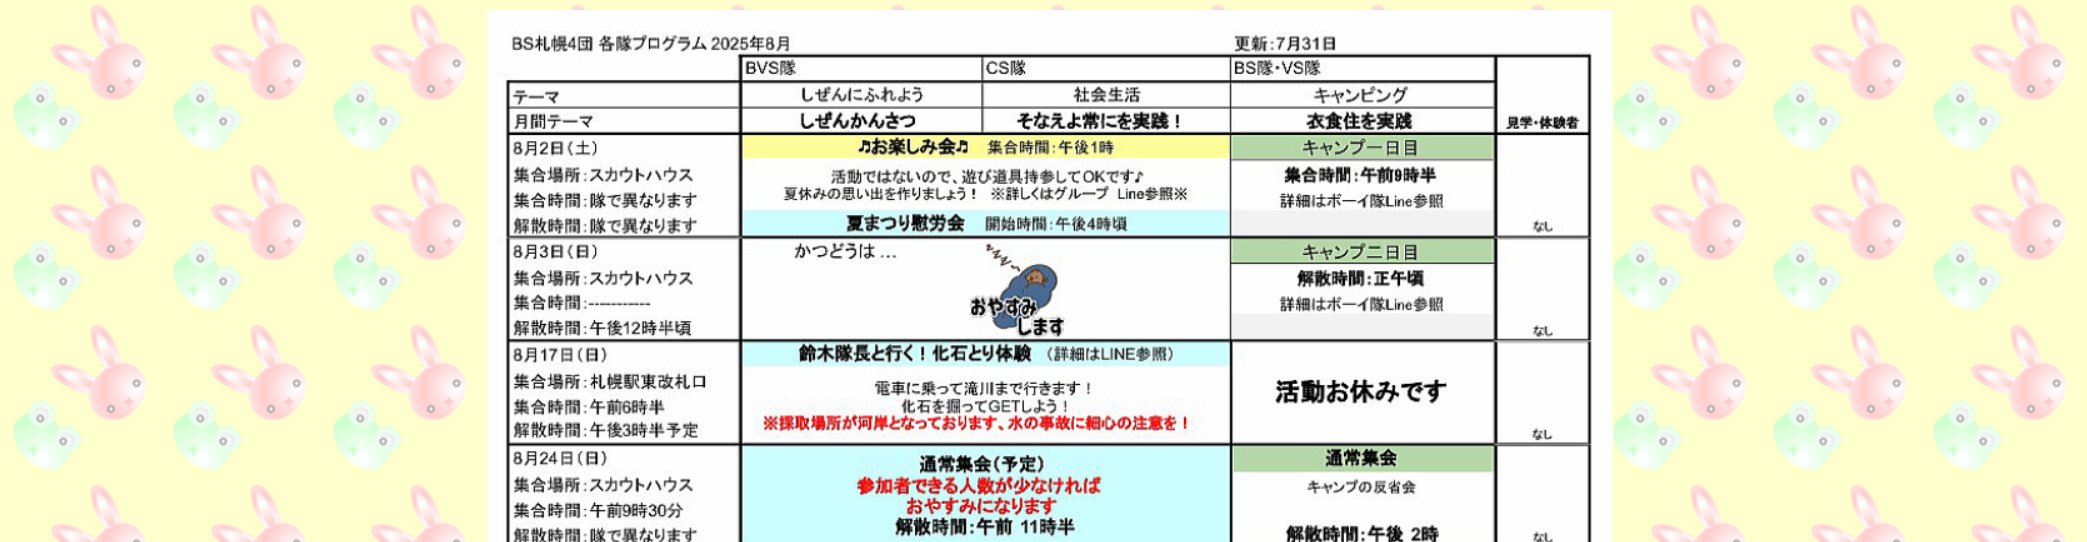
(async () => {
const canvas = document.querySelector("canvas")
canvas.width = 2087
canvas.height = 542
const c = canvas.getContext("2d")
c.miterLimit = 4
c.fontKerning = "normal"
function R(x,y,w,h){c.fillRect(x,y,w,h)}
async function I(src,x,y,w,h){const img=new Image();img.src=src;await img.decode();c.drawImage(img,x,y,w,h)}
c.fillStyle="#fff"
R(0,0,2087,542)
await I("1.png",0,0,2087,542)
await I("2.png",487,10,1126,532)
})()
